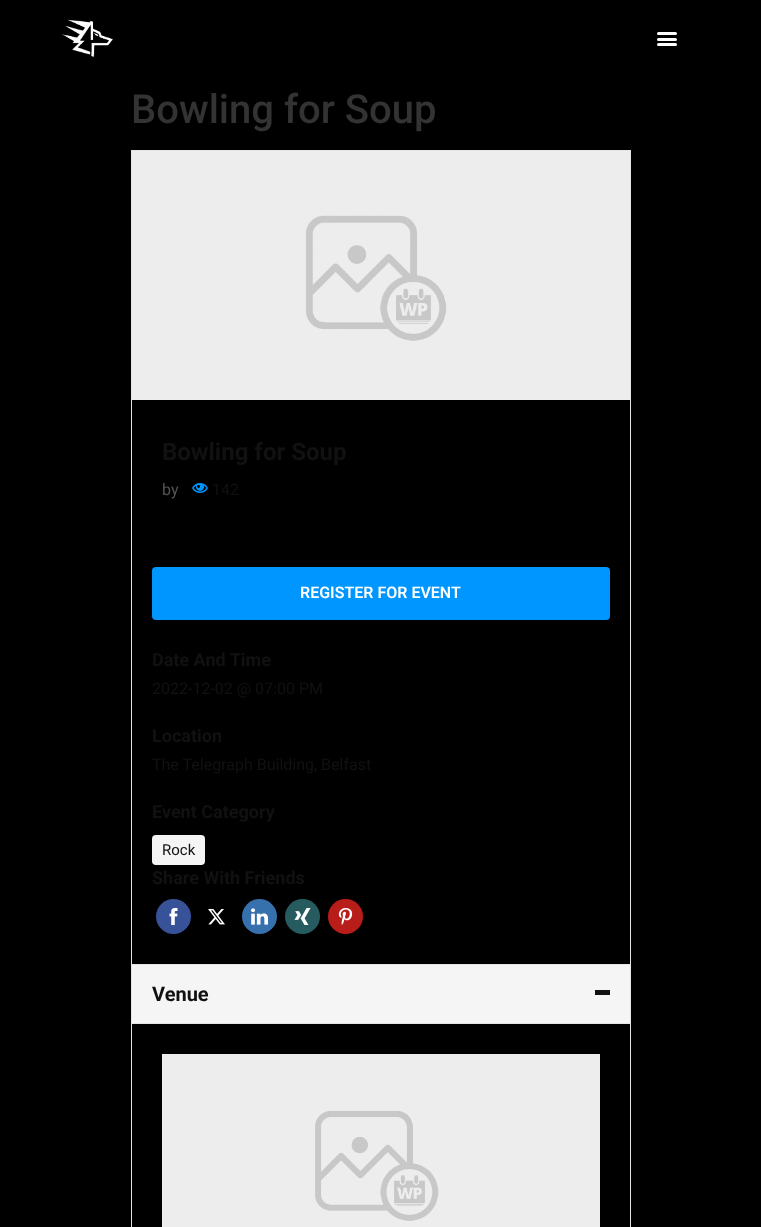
(async () => {
const canvas = document.querySelector("canvas")
canvas.width = 761
canvas.height = 1227
const c = canvas.getContext("2d")
c.miterLimit = 4
c.fontKerning = "normal"
function T(s,x,y){c.fillText(s,x,y)}
function R(x,y,w,h){c.fillRect(x,y,w,h)}
function Q(x,y,w,h,r){c.beginPath();c.roundRect(x,y,w,h,r);c.fill()}
async function I(src,x,y,w,h){const img=new Image();img.src=src;await img.decode();c.drawImage(img,x,y,w,h)}
c.fillStyle="#000"
R(0,0,761,1227)
await I("1.png",62,19,51,38)
c.fillStyle="#fff"
Q(657,38,20,3,1.5)
Q(657,32,20,3,1.5)
Q(657,43,20,3,1.5)
c.font="500 40px Roboto"
c.fillStyle="#333"
T("Bowling for Soup",131,123)
c.strokeStyle="#e4e4e4"
c.strokeRect(131.5,150.5,499,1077)
await I("2.png",132,151,498,249)
c.font="bold 24px Roboto"
c.fillStyle="#111"
T("Bowling for Soup",162,460)
c.font="16px Roboto"
c.fillStyle="#555"
T("by",162,495)
await I("3.png",192,483,16,10)
c.fillStyle="#111"
T("142",212,495)
c.fillStyle="#0096ff"
Q(152,567,458,53,4)
c.font="600 16px Roboto"
c.fillStyle="#fff"
T("REGISTER FOR EVENT",300,598)
c.font="bold 18px Roboto"
c.fillStyle="#111"
T("Date And Time",152,666)
c.font="16px Roboto"
T("2022-12-02 @ 07:00 PM",152,694)
c.font="bold 18px Roboto"
T("Location",152,742)
c.font="16px Roboto"
T("The Telegraph Building, Belfast",152,770)
c.font="bold 18px Roboto"
T("Event Category",152,818)
c.fillStyle="#f5f5f5"
Q(152,835,53,30,4)
c.font="15px Roboto"
c.fillStyle="#111"
T("Rock",162,855)
c.font="bold 18px Roboto"
T("Share With Friends",152,884)
c.fillStyle="#38529a"
c.beginPath()
c.arc(173.5,916.5,17.5,0,7)
c.fill()
await I("4.png",169,908,9,17)
await I("5.png",208,909,17,16)
c.fillStyle="#3671ae"
c.beginPath()
c.arc(259.5,916.5,17.5,0,7)
c.fill()
await I("6.png",251,908,17,17)
c.fillStyle="#265c60"
c.beginPath()
c.arc(302.5,916.5,17.5,0,7)
c.fill()
await I("7.png",294,908,17,17)
c.fillStyle="#b81d1a"
c.beginPath()
c.arc(345.5,916.5,17.5,0,7)
c.fill()
await I("8.png",338,908,15,17)
c.fillStyle="#f5f5f5"
R(132,965,498,58)
c.fillStyle="#e4e4e4"
R(132,964,498,1)
R(132,1023,498,1)
c.font="bold 20px Roboto"
c.fillStyle="#111"
T("Venue",152,1001)
R(595,990,15,5)
await I("9.png",162,1054,438,173)
})()
